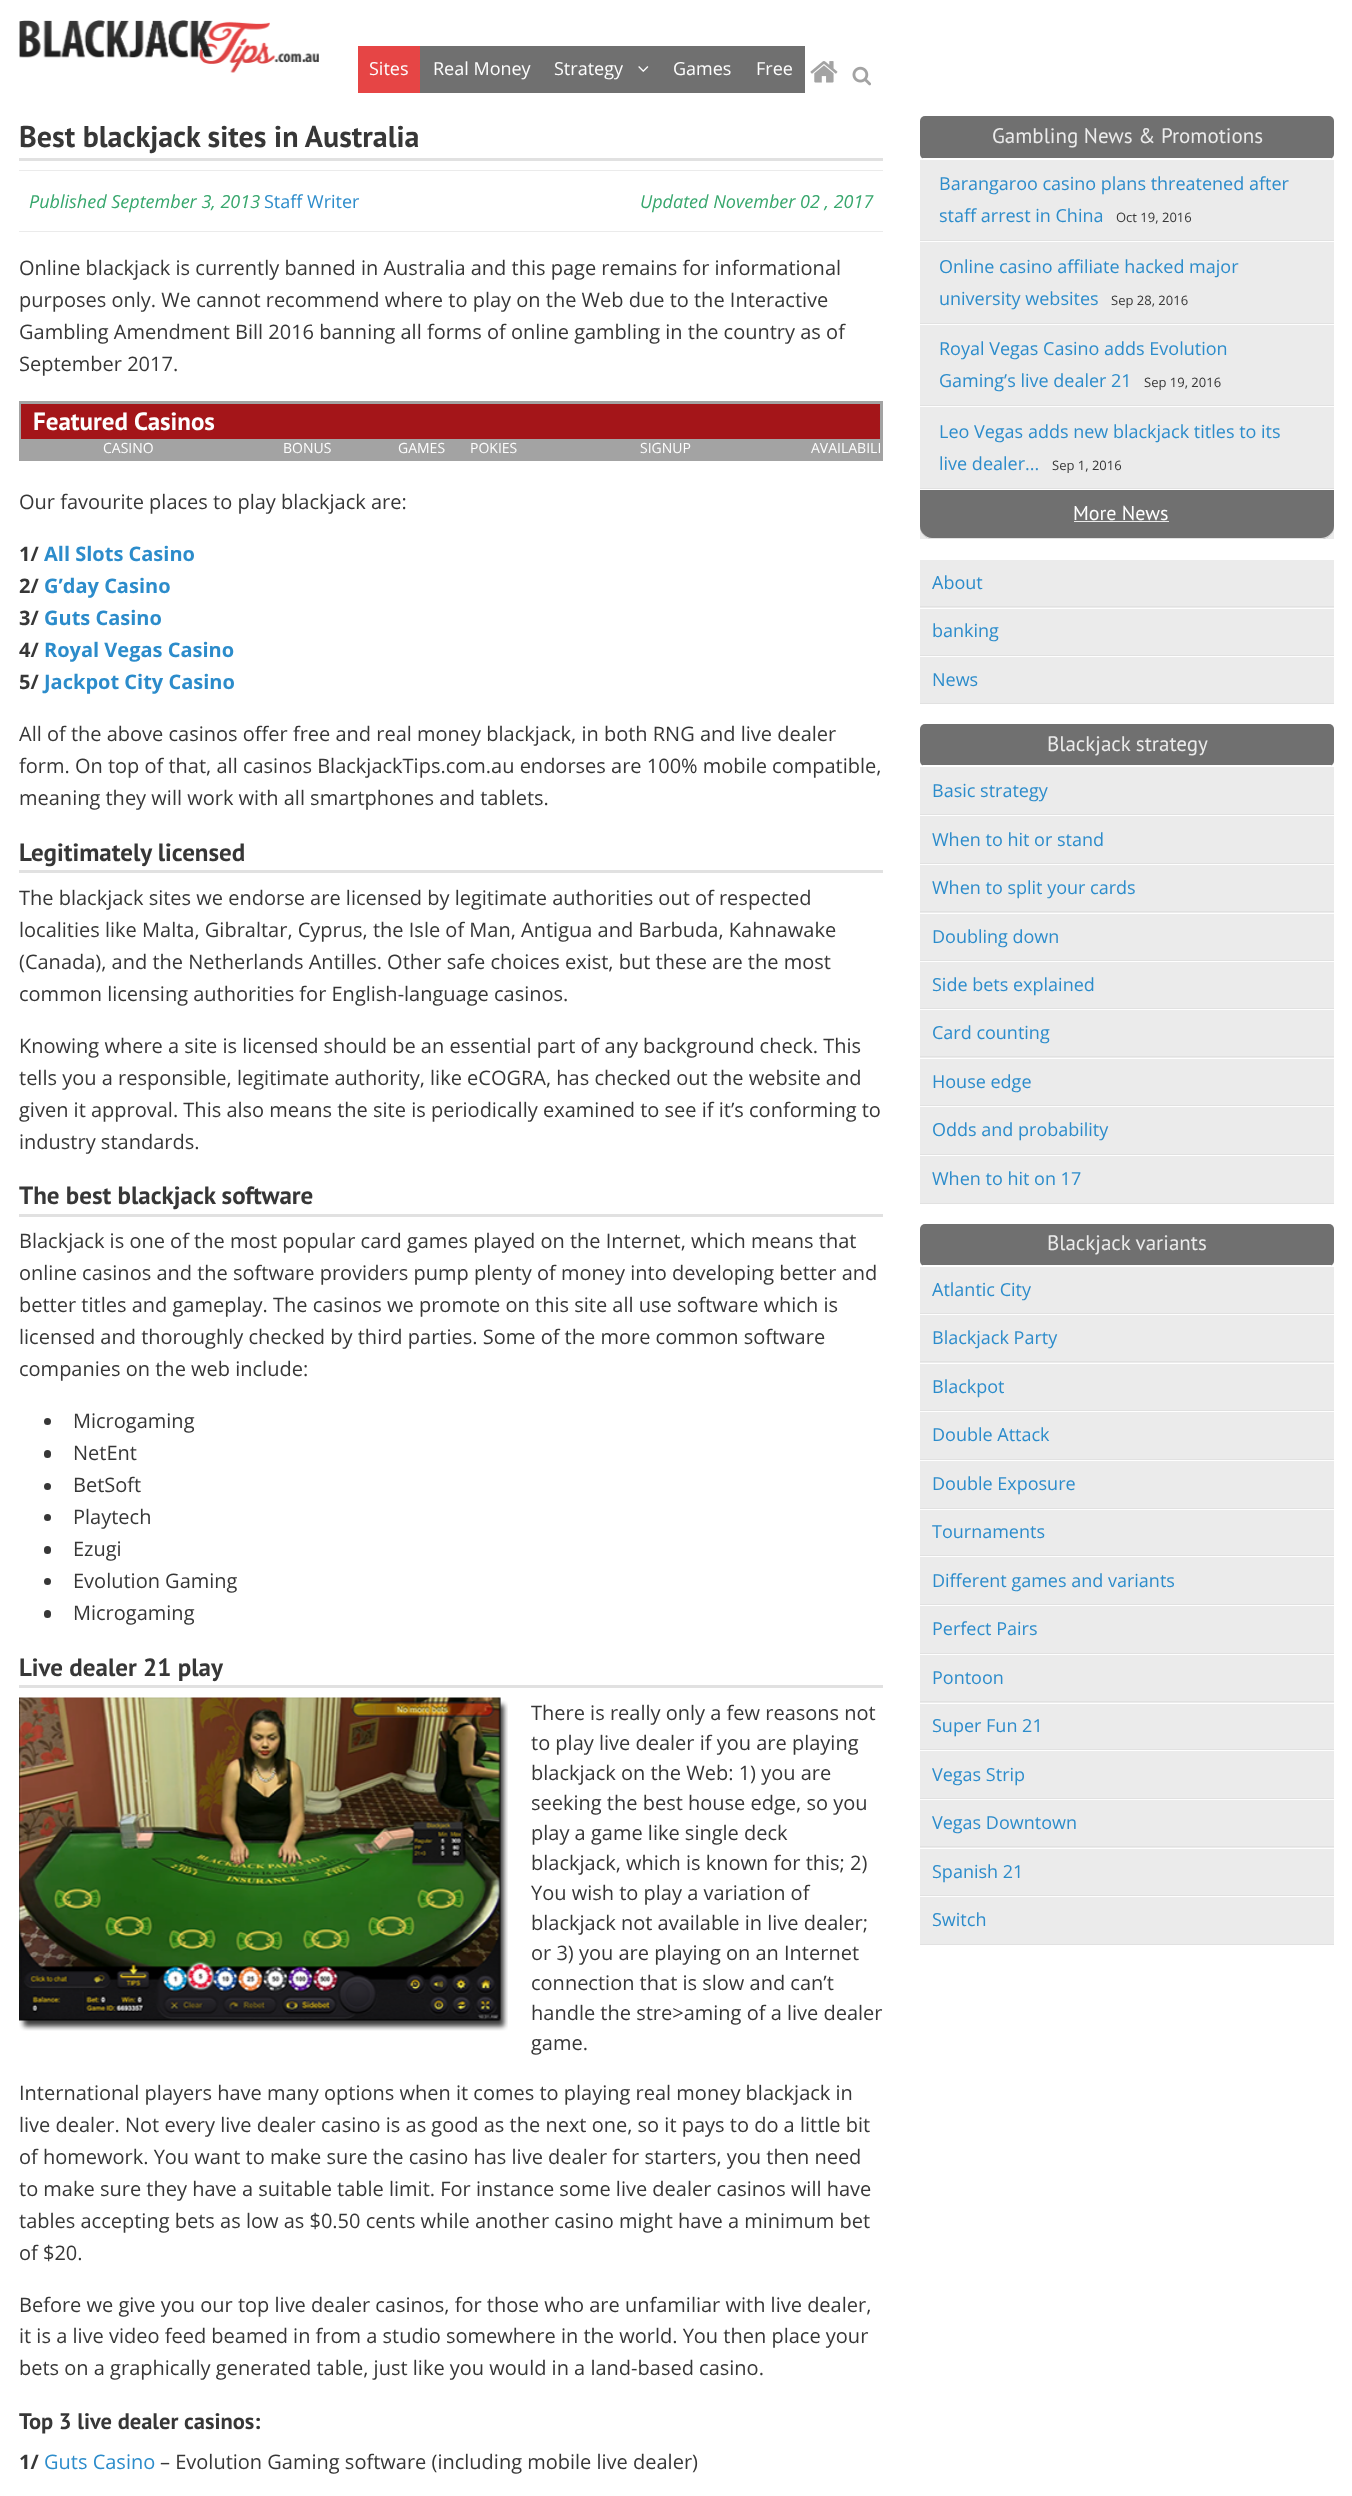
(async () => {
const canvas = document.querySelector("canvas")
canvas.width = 1352
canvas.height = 2496
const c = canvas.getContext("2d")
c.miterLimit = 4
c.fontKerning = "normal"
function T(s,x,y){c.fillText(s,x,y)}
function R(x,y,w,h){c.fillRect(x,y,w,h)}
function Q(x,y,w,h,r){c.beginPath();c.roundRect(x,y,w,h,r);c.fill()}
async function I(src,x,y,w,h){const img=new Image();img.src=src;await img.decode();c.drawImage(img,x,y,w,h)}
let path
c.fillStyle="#fff"
R(0,0,1352,2496)
await I("1.png",19,20,300,53)
c.fillStyle="#e64545"
R(358,46,62,47)
c.font="18px Open Sans"
c.fillStyle="#fefefe"
T("Sites",369,75)
c.fillStyle="#707070"
R(420,46,385,47)
c.fillStyle="#fefefe"
T("Real Money",433,75)
T("Strategy",554,75)
await I("2.png",638,66,11,6)
T("Games",673,75)
T("Free",756,75)
await I("3.png",810,61,28,22)
await I("4.png",852,66,19,20)
c.fillStyle="#e1e1e1"
R(19,158,864,3)
c.font="bold 30px PT Sans"
c.fillStyle="#373737"
T("Best blackjack sites in Australia",19,147)
c.fillStyle="#ebebeb"
R(19,170,864,1)
R(19,231,864,1)
c.font="italic 18px Open Sans"
c.fillStyle="#37a76d"
T("Published September 3, 2013",29,208)
c.font="18px Open Sans"
c.fillStyle="#2c8ccb"
T("Staff Writer",264,208)
c.font="italic 18px Open Sans"
c.fillStyle="#37a76d"
T("Updated November 02 , 2017",640,208)
c.font="20px Open Sans"
c.fillStyle="#373737"
T("Online blackjack is currently banned in Australia and this page remains for informational",19,275)
T("purposes only. We cannot recommend where to play on the Web due to the Interactive",19,307)
T("Gambling Amendment Bill 2016 banning all forms of online gambling in the country as of",19,339)
T("September 2017.",19,371)
c.strokeStyle="#a3a3a3"
c.lineWidth=3
c.strokeRect(20.5,402.5,861,57)
c.fillStyle="#a41519"
R(21,404,859,35)
c.font="bold 25px PT Sans"
c.fillStyle="#fefefe"
T("Featured Casinos",33,430)
c.fillStyle="#a3a3a3"
R(22,439,858,19)
c.font="14px Open Sans"
c.fillStyle="#fefefe"
T("CASINO",103,453)
T("BONUS",283,453)
T("GAMES",398,453)
T("POKIES",470,453)
T("SIGNUP",640,453)
T("AVAILABILI",811,453)
c.font="20px Open Sans"
c.fillStyle="#373737"
T("Our favourite places to play blackjack are:",19,509)
c.font="bold 20px Open Sans"
T("1/",19,561)
c.fillStyle="#2c8ccb"
T("All Slots Casino",44,561)
c.fillStyle="#373737"
T("2/",19,593)
c.fillStyle="#2c8ccb"
T("G’day Casino",44,593)
c.fillStyle="#373737"
T("3/",19,625)
c.fillStyle="#2c8ccb"
T("Guts Casino",44,625)
c.fillStyle="#373737"
T("4/",19,657)
c.fillStyle="#2c8ccb"
T("Royal Vegas Casino",44,657)
c.fillStyle="#373737"
T("5/",19,689)
c.fillStyle="#2c8ccb"
T("Jackpot City Casino",44,689)
c.font="20px Open Sans"
c.fillStyle="#373737"
T("All of the above casinos offer free and real money blackjack, in both RNG and live dealer",19,741)
T("form. On top of that, all casinos BlackjackTips.com.au endorses are 100% mobile compatible,",19,773)
T("meaning they will work with all smartphones and tablets.",19,805)
c.fillStyle="#e1e1e1"
R(19,870,864,3)
c.font="bold 25px PT Sans"
c.fillStyle="#373737"
T("Legitimately licensed",19,861)
c.font="20px Open Sans"
T("The blackjack sites we endorse are licensed by legitimate authorities out of respected",19,905)
T("localities like Malta, Gibraltar, Cyprus, the Isle of Man, Antigua and Barbuda, Kahnawake",19,937)
T("(Canada), and the Netherlands Antilles. Other safe choices exist, but these are the most",19,969)
T("common licensing authorities for English-language casinos.",19,1001)
T("Knowing where a site is licensed should be an essential part of any background check. This",19,1053)
T("tells you a responsible, legitimate authority, like eCOGRA, has checked out the website and",19,1085)
T("given it approval. This also means the site is periodically examined to see if it’s conforming to",19,1117)
T("industry standards.",19,1149)
c.fillStyle="#e1e1e1"
R(19,1214,864,3)
c.font="bold 25px PT Sans"
c.fillStyle="#373737"
T("The best blackjack software",19,1204)
c.font="20px Open Sans"
T("Blackjack is one of the most popular card games played on the Internet, which means that",19,1248)
T("online casinos and the software providers pump plenty of money into developing better and",19,1280)
T("better titles and gameplay. The casinos we promote on this site all use software which is",19,1312)
T("licensed and thoroughly checked by third parties. Some of the more common software",19,1344)
T("companies on the web include:",19,1376)
c.beginPath()
c.arc(47.5,1421.5,3.5,0,7)
c.fill()
T("Microgaming",73,1428)
Q(44,1450,7,8,3.5)
T("NetEnt",73,1460)
c.beginPath()
c.arc(47.5,1486.5,3.5,0,7)
c.fill()
T("BetSoft",73,1492)
c.beginPath()
c.arc(47.5,1517.5,3.5,0,7)
c.fill()
T("Playtech",73,1524)
Q(44,1546,7,8,3.5)
T("Ezugi",73,1556)
c.beginPath()
c.arc(47.5,1581.5,3.5,0,7)
c.fill()
T("Evolution Gaming",73,1588)
Q(44,1610,7,8,3.5)
T("Microgaming",73,1620)
c.fillStyle="#e1e1e1"
R(19,1685,864,3)
c.font="bold 25px PT Sans"
c.fillStyle="#373737"
T("Live dealer 21 play",19,1676)
await I("5.png",19,1697,489,334)
c.font="20px Open Sans"
T("There is really only a few reasons not",531,1720)
T("to play live dealer if you are playing",531,1750)
T("blackjack on the Web: 1) you are",531,1780)
T("seeking the best house edge, so you",531,1810)
T("play a game like single deck",531,1840)
T("blackjack, which is known for this; 2)",531,1870)
T("You wish to play a variation of",531,1900)
T("blackjack not available in live dealer;",531,1930)
T("or 3) you are playing on an Internet",531,1960)
T("connection that is slow and can’t",531,1990)
T("handle the stre>aming of a live dealer",531,2020)
T("game.",531,2050)
T("International players have many options when it comes to playing real money blackjack in",19,2100)
T("live dealer. Not every live dealer casino is as good as the next one, so it pays to do a little bit",19,2132)
T("of homework. You want to make sure the casino has live dealer for starters, you then need",19,2164)
T("to make sure they have a suitable table limit. For instance some live dealer casinos will have",19,2196)
T("tables accepting bets as low as $0.50 cents while another casino might have a minimum bet",19,2228)
T("of $20.",19,2260)
T("Before we give you our top live dealer casinos, for those who are unfamiliar with live dealer,",19,2312)
T("it is a live video feed beamed in from a studio somewhere in the world. You then place your",19,2343)
T("bets on a graphically generated table, just like you would in a land-based casino.",19,2375)
c.font="bold 22.5px PT Sans"
T("Top 3 live dealer casinos:",19,2429)
c.font="bold 20px Open Sans"
T("1/",19,2469)
c.font="20px Open Sans"
c.fillStyle="#2c8ccb"
T("Guts Casino",44,2469)
c.fillStyle="#373737"
T("– Evolution Gaming software (including mobile live dealer)",160,2469)
c.fillStyle="#707070"
Q(920,116,414,43,5)
c.fillStyle="#fefefe"
R(923,158,408,1)
c.font="21px PT Sans"
c.fillStyle="#ebebeb"
T("Gambling News & Promotions",992,143)
R(920,160,414,379)
c.fillStyle="#e1e1e1"
R(920,240,414,1)
c.font="18px Open Sans"
c.fillStyle="#2c8ccb"
T("Barangaroo casino plans threatened after",939,190)
T("staff arrest in China",939,222)
c.font="13px Open Sans"
c.fillStyle="#373737"
T("Oct 19, 2016",1116,222)
c.fillStyle="#fefefe"
R(920,241,414,1)
c.fillStyle="#e1e1e1"
R(920,323,414,1)
c.font="18px Open Sans"
c.fillStyle="#2c8ccb"
T("Online casino affiliate hacked major",939,273)
T("university websites",939,305)
c.font="13px Open Sans"
c.fillStyle="#373737"
T("Sep 28, 2016",1111,305)
c.fillStyle="#fefefe"
R(920,324,414,1)
c.fillStyle="#e1e1e1"
R(920,405,414,1)
c.font="18px Open Sans"
c.fillStyle="#2c8ccb"
T("Royal Vegas Casino adds Evolution",939,355)
T("Gaming’s live dealer 21",939,387)
c.font="13px Open Sans"
c.fillStyle="#373737"
T("Sep 19, 2016",1144,387)
c.fillStyle="#fefefe"
R(920,406,414,1)
c.fillStyle="#e1e1e1"
R(920,488,414,1)
c.font="18px Open Sans"
c.fillStyle="#2c8ccb"
T("Leo Vegas adds new blackjack titles to its",939,438)
T("live dealer...",939,470)
c.font="13px Open Sans"
c.fillStyle="#373737"
T("Sep 1, 2016",1052,470)
c.fillStyle="#707070"
c.beginPath()
c.roundRect(920,489,414,50,[0,0,13,13])
c.fill()
c.fillStyle="#fefefe"
R(920,489,414,1)
c.fillStyle="#e1e1e1"
path = new Path2D("M920 526c0 6 6 12 12 12h389c6 0 12-5 13-10c-1 6-5 10-11 11h-393c-5-1-10-7-10-13z")
c.fill(path)
c.font="20px PT Sans"
c.fillStyle="#fefefe"
T("More News",1073,520)
c.fillStyle="#ebebeb"
R(1074,521,95,1)
R(920,560,414,143)
c.fillStyle="#e1e1e1"
R(920,606,414,1)
c.font="18px Open Sans"
c.fillStyle="#2c8ccb"
T("About",932,589)
c.fillStyle="#fefefe"
R(920,608,414,1)
c.fillStyle="#e1e1e1"
R(920,655,414,1)
c.fillStyle="#2c8ccb"
T("banking",932,637)
c.fillStyle="#fefefe"
R(920,656,414,1)
c.fillStyle="#e1e1e1"
R(920,703,414,1)
c.fillStyle="#2c8ccb"
T("News",932,686)
c.fillStyle="#707070"
Q(920,724,414,42,5)
c.fillStyle="#fefefe"
R(923,765,408,1)
c.font="21px PT Sans"
c.fillStyle="#ebebeb"
T("Blackjack strategy",1047,751)
R(920,767,414,436)
c.fillStyle="#e1e1e1"
R(920,814,414,1)
c.font="18px Open Sans"
c.fillStyle="#2c8ccb"
T("Basic strategy",932,797)
c.fillStyle="#fefefe"
R(920,815,414,1)
c.fillStyle="#e1e1e1"
R(920,863,414,1)
c.fillStyle="#2c8ccb"
T("When to hit or stand",932,846)
c.fillStyle="#fefefe"
R(920,864,414,1)
c.fillStyle="#e1e1e1"
R(920,911,414,1)
c.fillStyle="#2c8ccb"
T("When to split your cards",932,894)
c.fillStyle="#fefefe"
R(920,913,414,1)
c.fillStyle="#e1e1e1"
R(920,960,414,1)
c.fillStyle="#2c8ccb"
T("Doubling down",932,943)
c.fillStyle="#fefefe"
R(920,961,414,1)
c.fillStyle="#e1e1e1"
R(920,1008,414,1)
c.fillStyle="#2c8ccb"
T("Side bets explained",932,991)
c.fillStyle="#fefefe"
R(920,1009,414,1)
c.fillStyle="#e1e1e1"
R(920,1056,414,1)
c.fillStyle="#2c8ccb"
T("Card counting",932,1039)
c.fillStyle="#fefefe"
R(920,1058,414,1)
c.fillStyle="#e1e1e1"
R(920,1105,414,1)
c.fillStyle="#2c8ccb"
T("House edge",932,1088)
c.fillStyle="#fefefe"
R(920,1106,414,1)
c.fillStyle="#e1e1e1"
R(920,1154,414,1)
c.fillStyle="#2c8ccb"
T("Odds and probability",932,1136)
c.fillStyle="#fefefe"
R(920,1155,414,1)
c.fillStyle="#e1e1e1"
R(920,1203,414,1)
c.fillStyle="#2c8ccb"
T("When to hit on 17",932,1185)
c.fillStyle="#707070"
Q(920,1224,414,42,5)
c.fillStyle="#fefefe"
R(923,1265,408,1)
c.font="21px PT Sans"
c.fillStyle="#ebebeb"
T("Blackjack variants",1047,1250)
R(920,1267,414,677)
c.fillStyle="#e1e1e1"
R(920,1313,414,1)
c.font="18px Open Sans"
c.fillStyle="#2c8ccb"
T("Atlantic City",932,1296)
c.fillStyle="#fefefe"
R(920,1314,414,1)
c.fillStyle="#e1e1e1"
R(920,1361,414,1)
c.fillStyle="#2c8ccb"
T("Blackjack Party",932,1344)
c.fillStyle="#fefefe"
R(920,1363,414,1)
c.fillStyle="#e1e1e1"
R(920,1410,414,1)
c.fillStyle="#2c8ccb"
T("Blackpot",932,1393)
c.fillStyle="#fefefe"
R(920,1411,414,1)
c.fillStyle="#e1e1e1"
R(920,1459,414,1)
c.fillStyle="#2c8ccb"
T("Double Attack",932,1441)
c.fillStyle="#fefefe"
R(920,1460,414,1)
c.fillStyle="#e1e1e1"
R(920,1508,414,1)
c.fillStyle="#2c8ccb"
T("Double Exposure",932,1490)
c.fillStyle="#fefefe"
R(920,1509,414,1)
c.fillStyle="#e1e1e1"
R(920,1555,414,1)
c.fillStyle="#2c8ccb"
T("Tournaments",932,1538)
c.fillStyle="#fefefe"
R(920,1556,414,1)
c.fillStyle="#e1e1e1"
R(920,1604,414,1)
c.fillStyle="#2c8ccb"
T("Different games and variants",932,1587)
c.fillStyle="#fefefe"
R(920,1605,414,1)
c.fillStyle="#e1e1e1"
R(920,1653,414,1)
c.fillStyle="#2c8ccb"
T("Perfect Pairs",932,1635)
c.fillStyle="#fefefe"
R(920,1654,414,1)
c.fillStyle="#e1e1e1"
R(920,1701,414,1)
c.fillStyle="#2c8ccb"
T("Pontoon",932,1684)
c.fillStyle="#fefefe"
R(920,1703,414,1)
c.fillStyle="#e1e1e1"
R(920,1749,414,1)
c.fillStyle="#2c8ccb"
T("Super Fun 21",932,1732)
c.fillStyle="#fefefe"
R(920,1750,414,1)
c.fillStyle="#e1e1e1"
R(920,1798,414,1)
c.fillStyle="#2c8ccb"
T("Vegas Strip",932,1781)
c.fillStyle="#fefefe"
R(920,1799,414,1)
c.fillStyle="#e1e1e1"
R(920,1846,414,1)
c.fillStyle="#2c8ccb"
T("Vegas Downtown",932,1829)
c.fillStyle="#fefefe"
R(920,1848,414,1)
c.fillStyle="#e1e1e1"
R(920,1895,414,1)
c.fillStyle="#2c8ccb"
T("Spanish 21",932,1878)
c.fillStyle="#fefefe"
R(920,1896,414,1)
c.fillStyle="#e1e1e1"
R(920,1944,414,1)
c.fillStyle="#2c8ccb"
T("Switch",932,1926)
})()
